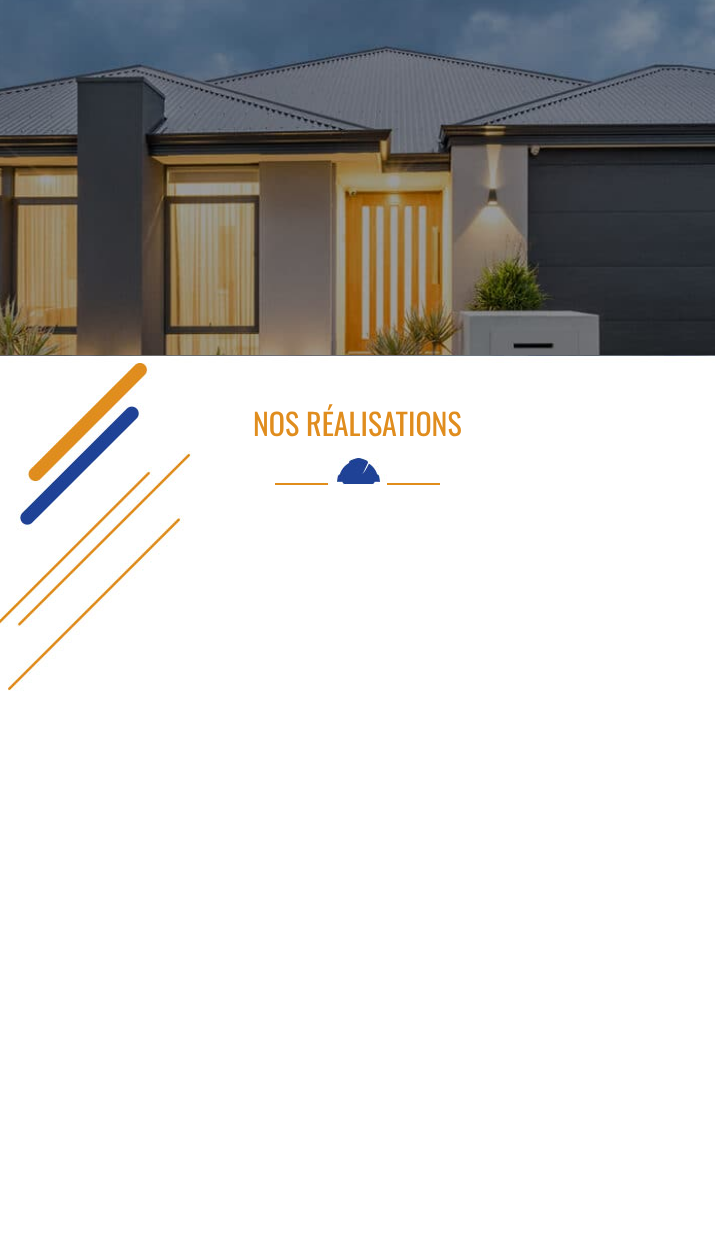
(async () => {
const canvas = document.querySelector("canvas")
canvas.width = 715
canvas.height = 1234
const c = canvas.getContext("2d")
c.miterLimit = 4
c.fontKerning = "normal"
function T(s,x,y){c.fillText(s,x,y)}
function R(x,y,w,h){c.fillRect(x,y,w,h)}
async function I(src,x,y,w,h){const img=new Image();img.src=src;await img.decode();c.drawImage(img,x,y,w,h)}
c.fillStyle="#fff"
R(0,0,715,1234)
await I("1.png",0,0,715,355)
await I("2.png",0,355,715,336)
c.font="30px Oswald"
c.fillStyle="#e08d1e"
T("NOS RÉALISATIONS",253,436)
await I("3.png",275,458,165,27)
})()
